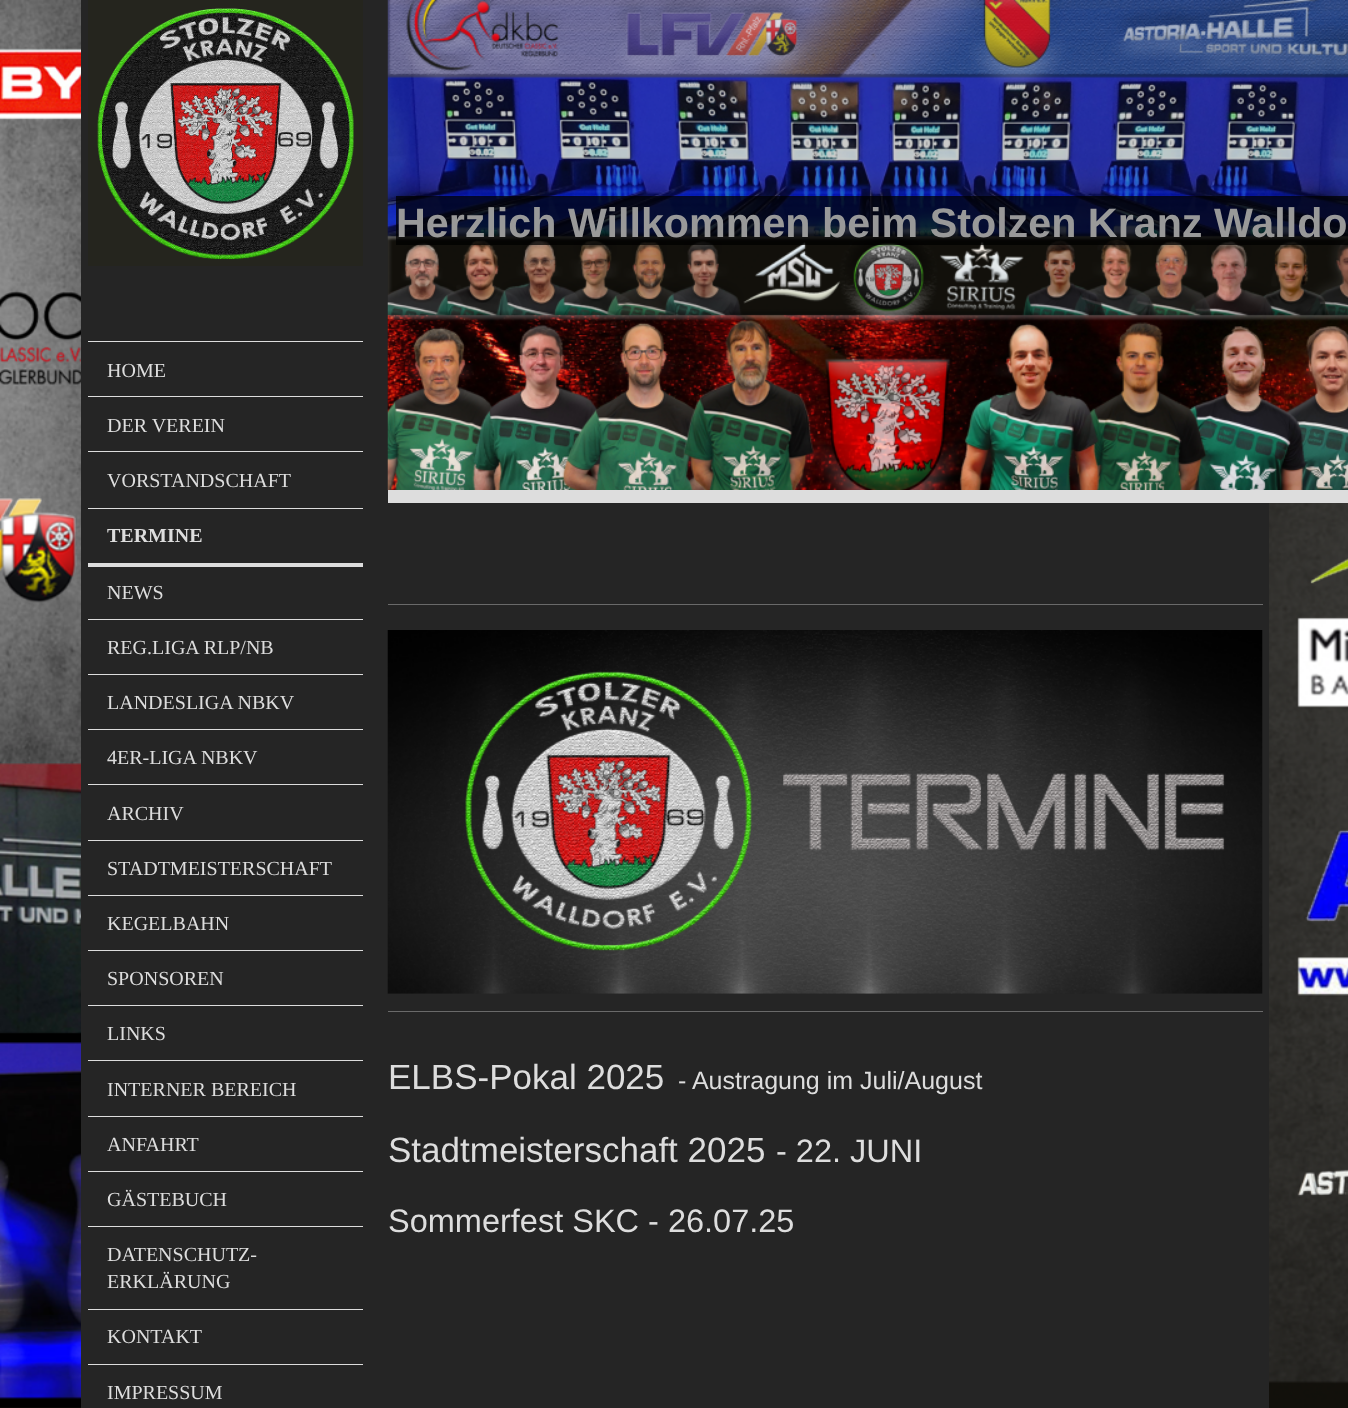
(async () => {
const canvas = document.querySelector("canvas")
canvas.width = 1348
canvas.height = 1408
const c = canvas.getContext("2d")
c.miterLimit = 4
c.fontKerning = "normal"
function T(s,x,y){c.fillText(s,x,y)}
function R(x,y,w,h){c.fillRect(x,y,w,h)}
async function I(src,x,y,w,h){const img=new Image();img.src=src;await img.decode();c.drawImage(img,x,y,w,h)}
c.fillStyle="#fff"
R(0,0,1348,1408)
await I("1.png",0,0,1348,1408)
c.fillStyle="#252525"
R(81,0,1188,1408)
c.fillStyle="#25251e"
R(88,0,275,266)
await I("2.png",97,8,257,252)
c.fillStyle="#ddd"
R(88,341,275,1)
R(88,396,275,1)
c.font="20px Liberation Serif"
T("HOME",107,377)
R(88,451,275,1)
T("DER VEREIN",107,432)
R(88,508,275,1)
T("VORSTANDSCHAFT",107,487)
R(88,563,275,4)
c.font="bold 20px Liberation Serif"
T("TERMINE",107,542)
R(88,619,275,1)
c.font="20px Liberation Serif"
T("NEWS",107,599)
R(88,674,275,1)
T("REG.LIGA RLP/NB",107,654)
R(88,729,275,1)
T("LANDESLIGA NBKV",107,709)
R(88,784,275,1)
T("4ER-LIGA NBKV",107,764)
R(88,840,275,1)
T("ARCHIV",107,820)
R(88,895,275,1)
T("STADTMEISTERSCHAFT",107,875)
R(88,950,275,1)
T("KEGELBAHN",107,930)
R(88,1005,275,1)
T("SPONSOREN",107,985)
R(88,1060,275,1)
T("LINKS",107,1040)
R(88,1116,275,1)
T("INTERNER BEREICH",107,1096)
R(88,1171,275,1)
T("ANFAHRT",107,1151)
R(88,1226,275,1)
T("GÄSTEBUCH",107,1206)
R(88,1309,275,1)
T("DATENSCHUTZ-",107,1261)
T("ERKLÄRUNG",107,1288)
R(88,1364,275,1)
T("KONTAKT",107,1343)
T("IMPRESSUM",107,1399)
R(388,490,960,13)
await I("3.png",387,0,961,490)
c.fillStyle="#000000bd"
R(396,196,952,49)
c.font="bold 41.25px Liberation Sans"
c.fillStyle="#999"
T("Herzlich Willkommen beim Stolzen Kranz Walldo",396,237)
c.fillStyle="#6a6a6a"
R(388,604,875,1)
await I("4.png",387,630,876,364)
R(388,1011,875,1)
c.font="35px Liberation Sans"
c.fillStyle="#ddd"
T("ELBS-Pokal 2025",388,1089)
c.font="25px Liberation Sans"
T("- Austragung im Juli/August",678,1089)
c.font="35px Liberation Sans"
T("Stadtmeisterschaft 2025",388,1162)
c.font="32.5px Liberation Sans"
T("- 22. JUNI",776,1162)
T("Sommerfest SKC - 26.07.25",388,1232)
})()
